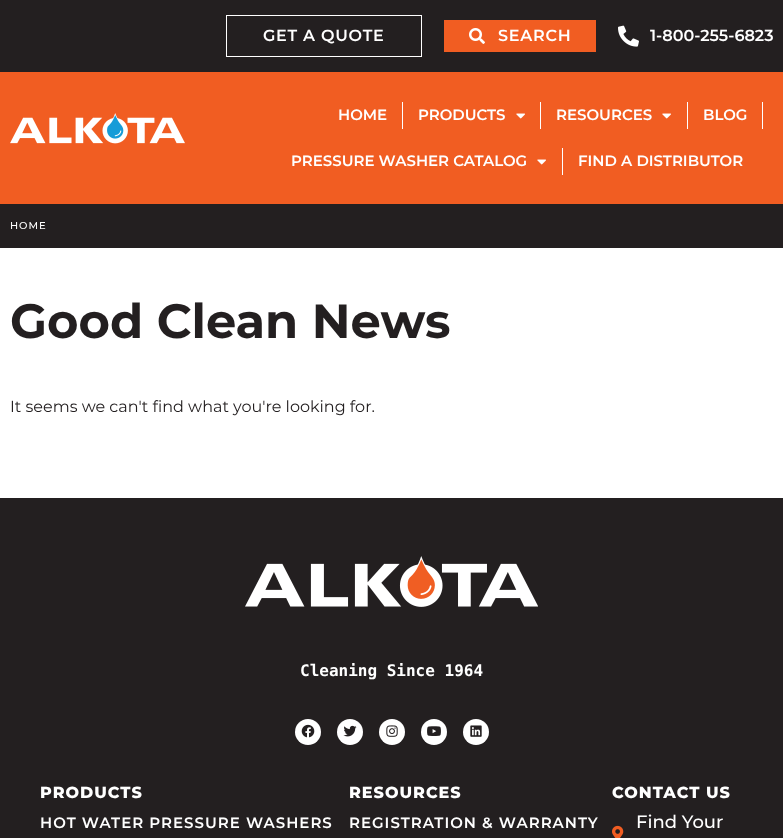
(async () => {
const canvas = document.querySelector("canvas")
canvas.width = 783
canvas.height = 838
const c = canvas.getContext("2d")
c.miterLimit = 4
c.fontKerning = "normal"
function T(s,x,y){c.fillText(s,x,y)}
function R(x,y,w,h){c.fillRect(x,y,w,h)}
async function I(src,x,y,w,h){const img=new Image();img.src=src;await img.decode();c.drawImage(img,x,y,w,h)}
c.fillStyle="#fff"
R(0,0,783,838)
c.fillStyle="#231f20"
R(0,0,783,72)
c.strokeStyle="#fff"
c.strokeRect(226.5,15.5,195,41)
c.letterSpacing="0.75px"
c.font="600 16px Montserrat"
c.fillStyle="#fff"
T("GET A QUOTE",263,41)
c.fillStyle="#f15d22"
R(444,20,152,32)
await I("1.png",469,28,16,16)
c.fillStyle="#fff"
T("SEARCH",498,41)
await I("2.png",618,25,21,22)
c.letterSpacing="0px"
T("1-800-255-6823",650,41)
c.fillStyle="#f15d22"
R(0,72,783,132)
await I("3.png",10,113,175,31)
c.font="600 15px Montserrat"
c.fillStyle="#fff"
T("HOME",338,120)
R(402,102,1,27)
T("PRODUCTS",418,120)
await I("4.png",516,113,9,6)
R(540,102,1,27)
T("RESOURCES",556,120)
await I("4.png",662,113,9,6)
R(687,102,1,27)
T("BLOG",703,120)
R(762,102,1,27)
T("PRESSURE WASHER CATALOG",291,166)
await I("4.png",537,159,9,6)
R(562,148,1,27)
T("FIND A DISTRIBUTOR",578,166)
c.fillStyle="#231f20"
R(0,204,783,44)
c.letterSpacing="1px"
c.font="500 10px Montserrat"
c.fillStyle="#fff"
T("HOME",10,229)
c.letterSpacing="0px"
c.font="bold 48px Montserrat"
c.fillStyle="#231f20"
T("Good Clean News",10,338)
c.font="16px Montserrat"
T("It seems we can't find what you're looking for.",10,412)
R(0,498,783,340)
await I("5.png",245,556,293,51)
c.font="bold 16px DejaVu Sans Mono"
c.fillStyle="#fff"
T("Cleaning Since 1964",300,676)
c.beginPath()
c.arc(308,732,13,0,7)
c.fill()
await I("6.png",301,724,14,14)
c.beginPath()
c.arc(350,732,13,0,7)
c.fill()
await I("7.png",343,725,14,12)
c.beginPath()
c.arc(392,732,13,0,7)
c.fill()
await I("8.png",386,725,12,12)
c.beginPath()
c.arc(434,732,13,0,7)
c.fill()
await I("9.png",427,726,14,10)
c.beginPath()
c.arc(476,732,13,0,7)
c.fill()
await I("10.png",470,725,12,12)
c.letterSpacing="1px"
c.font="800 16px Montserrat"
T("PRODUCTS",40,798)
c.font="600 15px Montserrat"
T("HOT WATER PRESSURE WASHERS",40,828)
c.font="800 16px Montserrat"
T("RESOURCES",349,798)
c.font="600 15px Montserrat"
T("REGISTRATION & WARRANTY",349,828)
c.font="800 16px Montserrat"
T("CONTACT US",612,798)
c.letterSpacing="0px"
c.font="500 18px Montserrat"
T("Find Your",636,828)
await I("11.png",612,825,12,13)
})()
